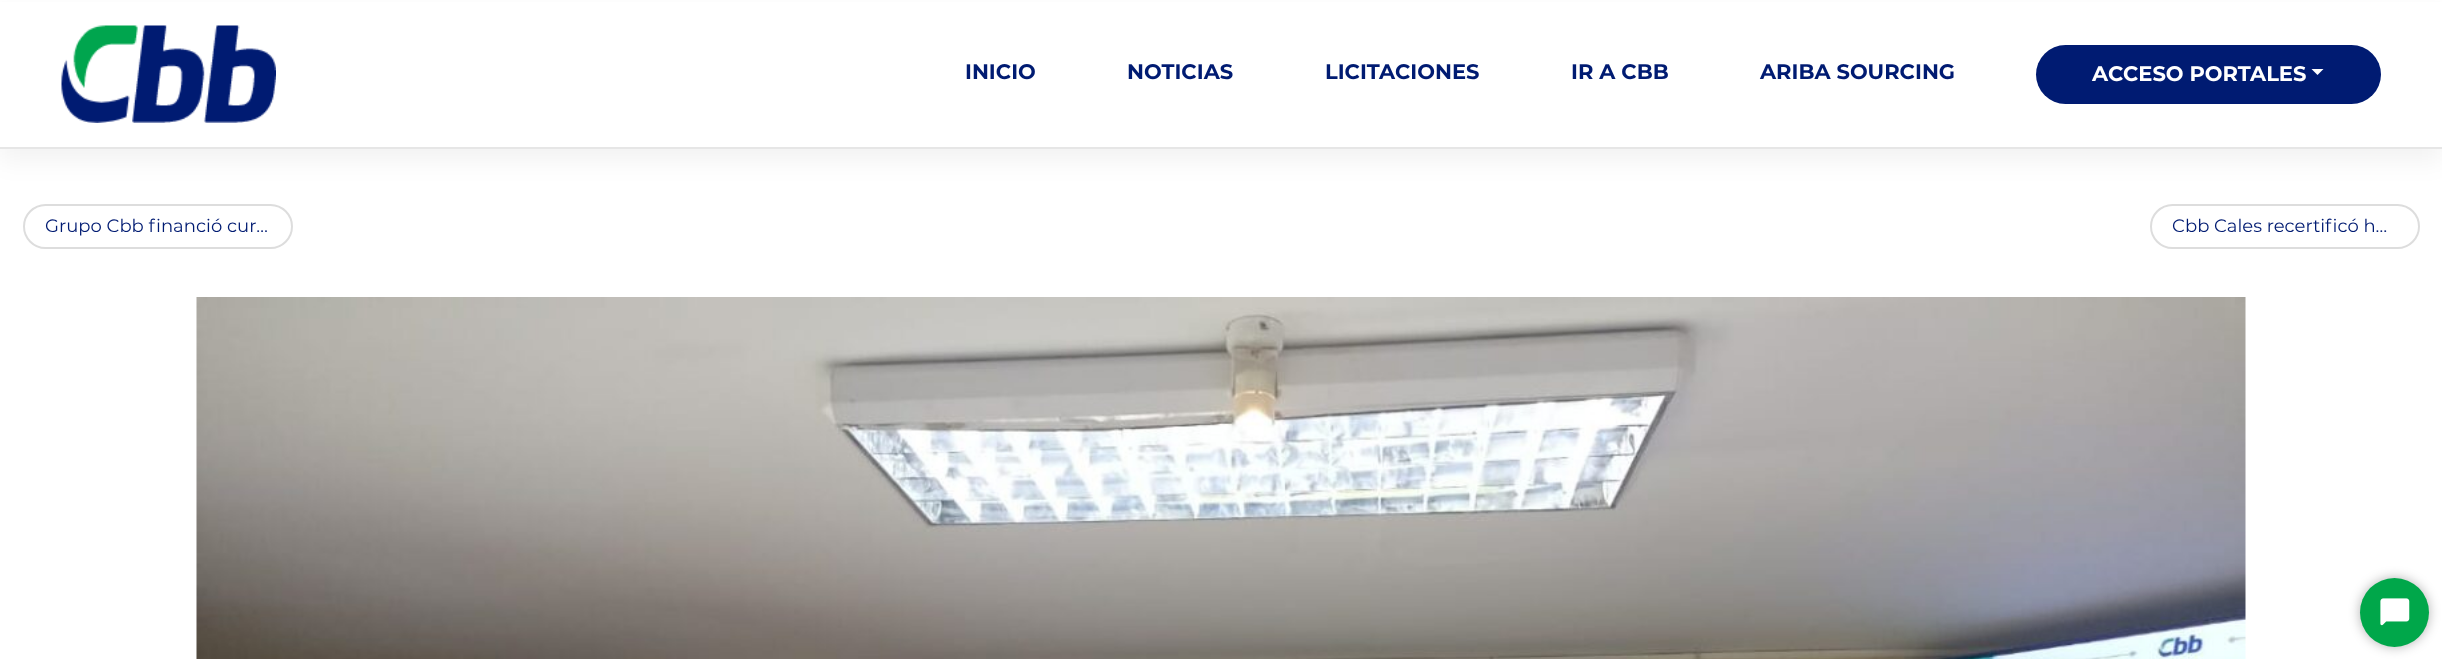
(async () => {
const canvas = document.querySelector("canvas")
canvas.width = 2442
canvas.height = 659
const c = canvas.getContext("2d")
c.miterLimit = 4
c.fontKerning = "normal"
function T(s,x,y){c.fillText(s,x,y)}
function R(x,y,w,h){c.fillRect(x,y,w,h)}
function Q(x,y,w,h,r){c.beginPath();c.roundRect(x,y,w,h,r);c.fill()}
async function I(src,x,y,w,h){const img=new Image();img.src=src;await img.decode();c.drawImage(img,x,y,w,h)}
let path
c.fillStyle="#fff"
R(0,0,2442,659)
c.fillStyle="#0000000d"
c.filter="blur(12px)"
c.beginPath()
c.rect(0,12,2442,149)
c.fill()
c.filter="none"
c.fillStyle="#fff"
R(0,2,2442,145)
c.fillStyle="#e6e6e6"
R(0,147,2442,2)
await I("1.png",61,25,215,98)
c.font="bold 21px Montserrat"
c.fillStyle="#001b72"
T("INICIO",965,79)
T("NOTICIAS",1127,79)
T("LICITACIONES",1325,79)
T("IR A CBB",1571,79)
T("ARIBA SOURCING",1760,79)
Q(2036,45,345,59,29.5)
c.fillStyle="#fff"
T("ACCESO PORTALES",2092,81)
path = new Path2D("M2311.5 69h12l-6 6z")
c.fill(path)
c.beginPath()
c.roundRect(24,205,268,43,21.5)
c.strokeStyle="#ddd"
c.lineWidth=2
c.stroke()
c.font="18px Montserrat"
c.fillStyle="#001b72"
T("Grupo Cbb financió cur…",45,232)
c.beginPath()
c.roundRect(2151,205,268,43,21.5)
c.stroke()
T("Cbb Cales recertificó h…",2172,232)
await I("2.png",196,297,2050,362)
c.fillStyle="#0000004d"
c.filter="blur(6px)"
c.beginPath()
c.roundRect(2360,578,69,69,34.5)
c.fill()
c.filter="none"
c.fillStyle="#00a74a"
c.beginPath()
c.arc(2394.5,612.5,34.5,0,7)
c.fill()
await I("3.png",2380,598,30,28)
})()
